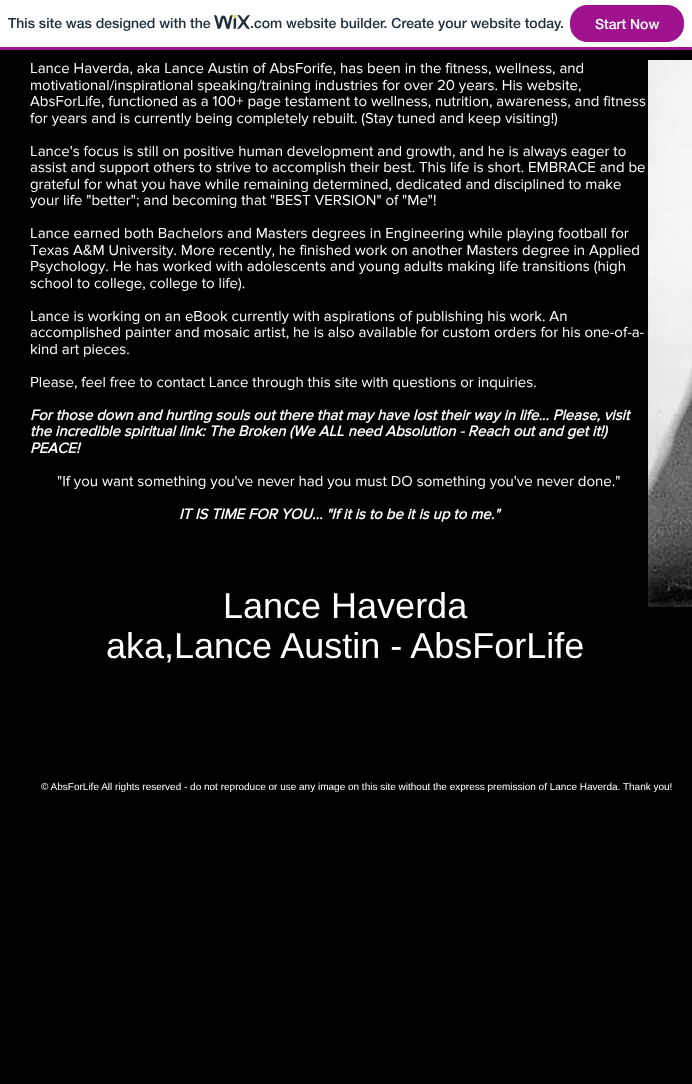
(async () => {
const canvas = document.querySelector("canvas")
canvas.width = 692
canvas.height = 1084
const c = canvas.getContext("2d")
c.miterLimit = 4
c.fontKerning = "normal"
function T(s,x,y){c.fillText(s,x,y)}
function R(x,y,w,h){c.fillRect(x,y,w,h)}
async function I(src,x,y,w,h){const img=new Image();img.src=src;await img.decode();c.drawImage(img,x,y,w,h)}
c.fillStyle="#fff"
R(0,0,692,1084)
c.fillStyle="#a0138e"
R(0,47,692,3)
c.font="500 14px 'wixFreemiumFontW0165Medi'"
c.fillStyle="#20303c"
T("This site was designed with the",8,28)
await I("1.png",214,15,36,15)
T(".com website builder. Create your website today.",250,28)
c.fillStyle="#a0138e"
c.beginPath()
c.roundRect(570.5,5.5,113,36,16.5)
c.fill()
c.strokeStyle="#a0138e"
c.stroke()
c.fillStyle="#fff"
T("Start Now",595,29)
c.fillStyle="#000"
R(0,50,692,1034)
c.font="15px 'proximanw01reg'"
c.fillStyle="#fff"
T("Lance Haverda, aka Lance Austin of AbsForife, has been in the fitness, wellness, and",30,73)
T("motivational/inspirational speaking/training industries for over 20 years. His website,",30,90)
T("AbsForLife, functioned as a 100+ page testament to wellness, nutrition, awareness, and fitness",30,106)
T("for years and is currently being completely rebuilt. (Stay tuned and keep visiting!)",30,123)
T("Lance's focus is still on positive human development and growth, and he is always eager to",30,156)
T("assist and support others to strive to accomplish their best. This life is short. EMBRACE and be",30,172)
T("grateful for what you have while remaining determined, dedicated and disciplined to make",30,189)
T("your life \"better\"; and becoming that \"BEST VERSION\" of \"Me\"!",30,205)
T("Lance earned both Bachelors and Masters degrees in Engineering while playing football for",30,238)
T("Texas A&M University. More recently, he finished work on another Masters degree in Applied",30,255)
T("Psychology. He has worked with adolescents and young adults making life transitions (high",30,271)
T("school to college, college to life).",30,288)
T("Lance is working on an eBook currently with aspirations of publishing his work. An",30,321)
T("accomplished painter and mosaic artist, he is also available for custom orders for his one-of-a-",30,337)
T("kind art pieces.",30,354)
T("Please, feel free to contact Lance through this site with questions or inquiries.",30,387)
c.font="italic bold 15px 'proximanw01reg'"
T("For those down and hurting souls out there that may have lost their way in life... Please, visit",30,420)
T("the incredible spiritual link: The Broken (We ALL need Absolution - Reach out and get it!)",30,436)
T("PEACE!",30,453)
c.font="15px 'proximanw01reg'"
T("\"If you want something you've never had you must DO something you've never done.\"",57,486)
c.font="italic bold 15px 'proximanw01reg'"
T("IT IS TIME FOR YOU... \"If it is to be it is up to me.\"",179,519)
await I("2.png",648,60,44,547)
c.font="36px Liberation Sans"
T("Lance Haverda",223,618)
T("aka,Lance Austin - AbsForLife",106,658)
c.font="10px Liberation Sans"
T("© AbsForLife All rights reserved - do not reproduce or use any image on this site without the express premission of Lance Haverda. Thank you!",41,790)
})()
